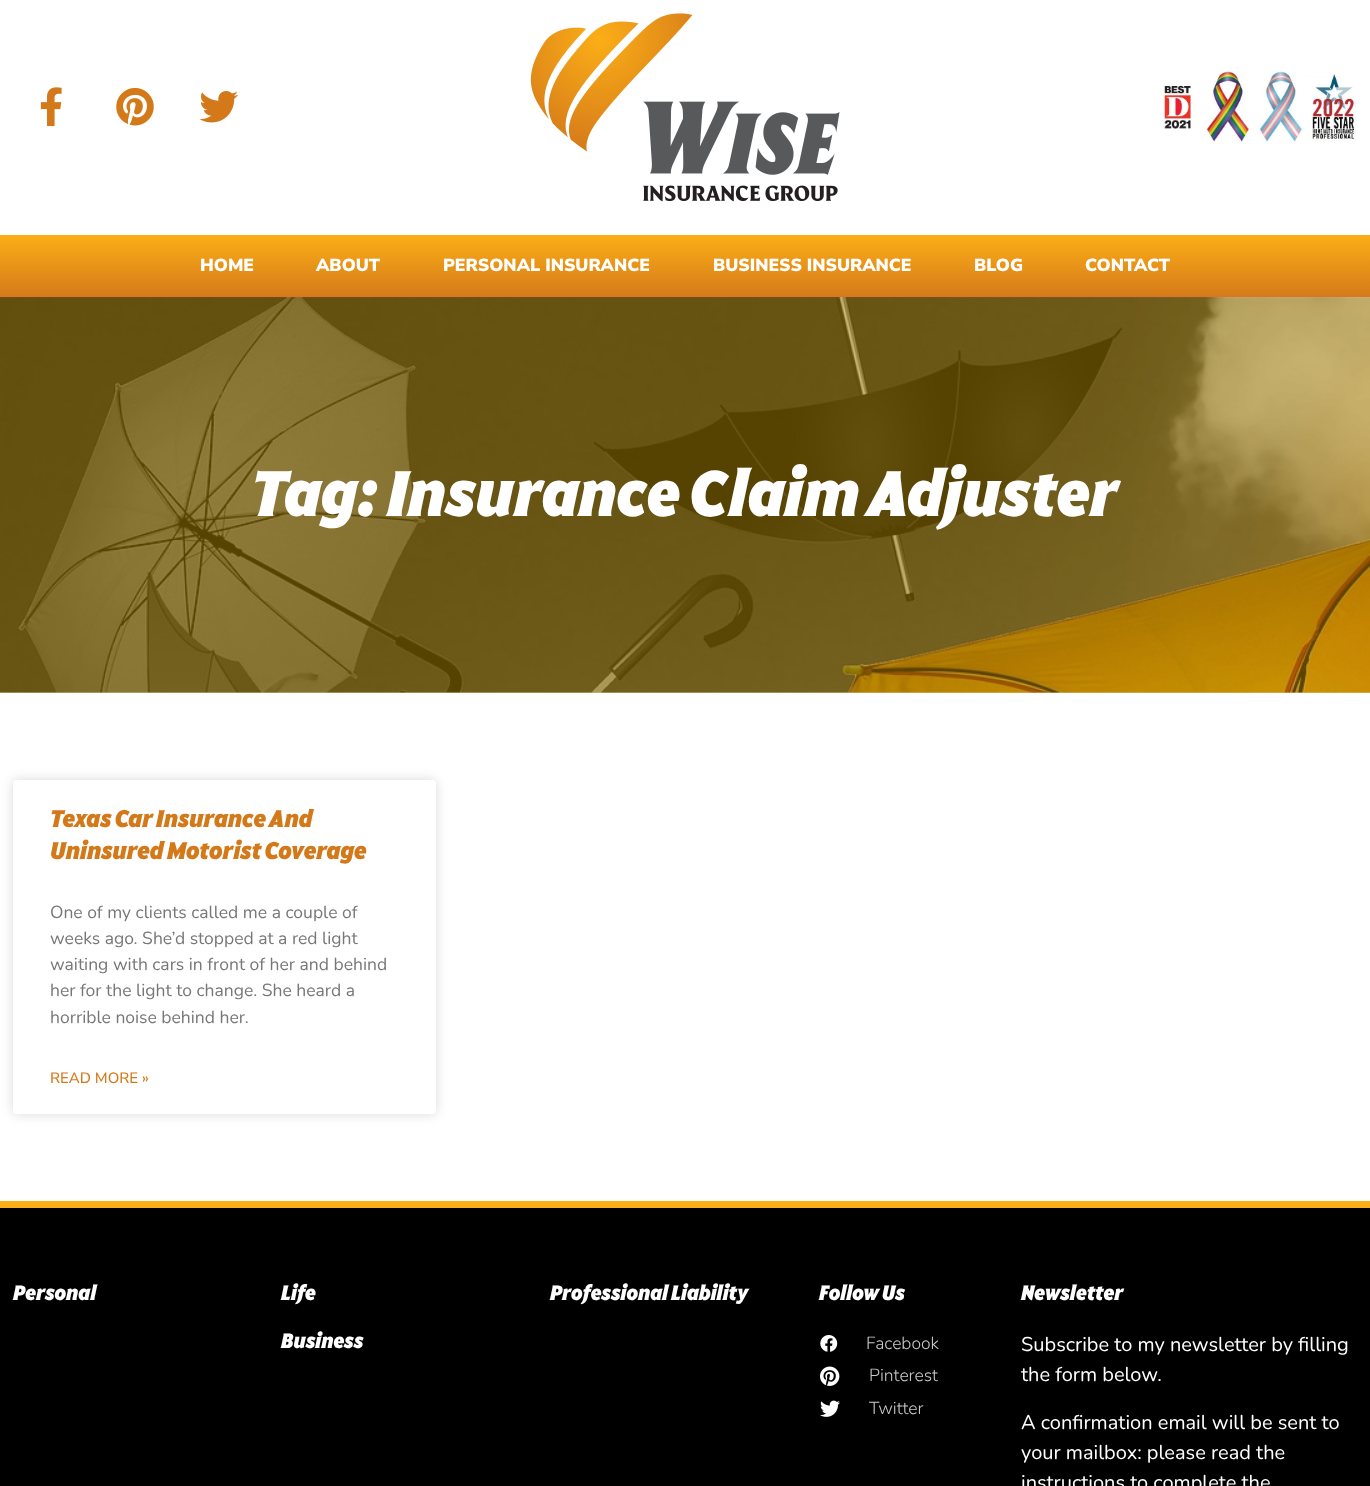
(async () => {
const canvas = document.querySelector("canvas")
canvas.width = 1370
canvas.height = 1486
const c = canvas.getContext("2d")
c.miterLimit = 4
c.fontKerning = "normal"
function T(s,x,y){c.fillText(s,x,y)}
function R(x,y,w,h){c.fillRect(x,y,w,h)}
function Q(x,y,w,h,r){c.beginPath();c.roundRect(x,y,w,h,r);c.fill()}
async function I(src,x,y,w,h){const img=new Image();img.src=src;await img.decode();c.drawImage(img,x,y,w,h)}
let gradient
c.fillStyle="#fff"
R(0,0,1370,1486)
c.fillStyle="#d5c280"
R(0,692,1370,1)
await I("1.png",40,87,22,40)
await I("2.png",116,88,38,38)
await I("3.png",199,91,39,32)
await I("4.png",530,13,310,189)
await I("5.png",1162,70,195,73)
gradient = c.createLinearGradient(685,235,685,298)
gradient.addColorStop(0,"#fbae17")
gradient.addColorStop(1,"#d4791a")
c.fillStyle = gradient
R(0,235,1370,63)
c.font="900 17.5px Nunito Sans"
c.fillStyle="#fff"
T("HOME",200,271)
T("ABOUT",316,271)
T("PERSONAL INSURANCE",443,271)
T("BUSINESS INSURANCE",713,271)
T("BLOG",974,271)
T("CONTACT",1085,271)
await I("6.png",0,297,1370,396)
c.font="italic 900 70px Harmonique"
T("Tag: Insurance Claim Adjuster",251,516)
c.fillStyle="#00000026"
c.filter="blur(6px)"
c.beginPath()
c.roundRect(13,780,423,334,4)
c.fill()
c.filter="none"
c.fillStyle="#fff"
Q(13,780,423,334,4)
c.font="italic 900 26.25px Harmonique"
c.fillStyle="#d4791a"
T("Texas Car Insurance And",50,827)
T("Uninsured Motorist Coverage",50,859)
c.font="17.5px Nunito"
c.fillStyle="#777"
T("One of my clients called me a couple of",50,918)
T("weeks ago. She’d stopped at a red light",50,944)
T("waiting with cars in front of her and behind",50,970)
T("her for the light to change. She heard a",50,996)
T("horrible noise behind her.",50,1023)
c.font="500 15px Nunito Sans"
c.fillStyle="#d4791a"
T("READ MORE »",50,1083)
c.fillStyle="#000"
R(0,1208,1370,278)
c.fillStyle="#fbae17"
R(0,1201,1370,7)
c.font="italic 900 22.5px Harmonique"
c.fillStyle="#fff"
T("Personal",13,1300)
T("Life",281,1300)
T("Business",281,1348)
T("Professional Liability",550,1300)
T("Follow Us",819,1300)
await I("7.png",820,1335,18,17)
c.font="300 17.5px Nunito"
c.fillStyle="#c9c9c9"
T("Facebook",866,1349)
await I("8.png",820,1366,20,20)
T("Pinterest",869,1381)
await I("9.png",820,1400,20,17)
T("Twitter",869,1414)
c.font="italic 900 22.5px Harmonique"
c.fillStyle="#fff"
T("Newsletter",1021,1300)
c.font="20px Nunito"
T("Subscribe to my newsletter by filling",1021,1351)
T("the form below.",1021,1381)
T("A confirmation email will be sent to",1021,1429)
T("your mailbox: please read the",1021,1459)
T("instructions to complete the",1021,1489)
})()
